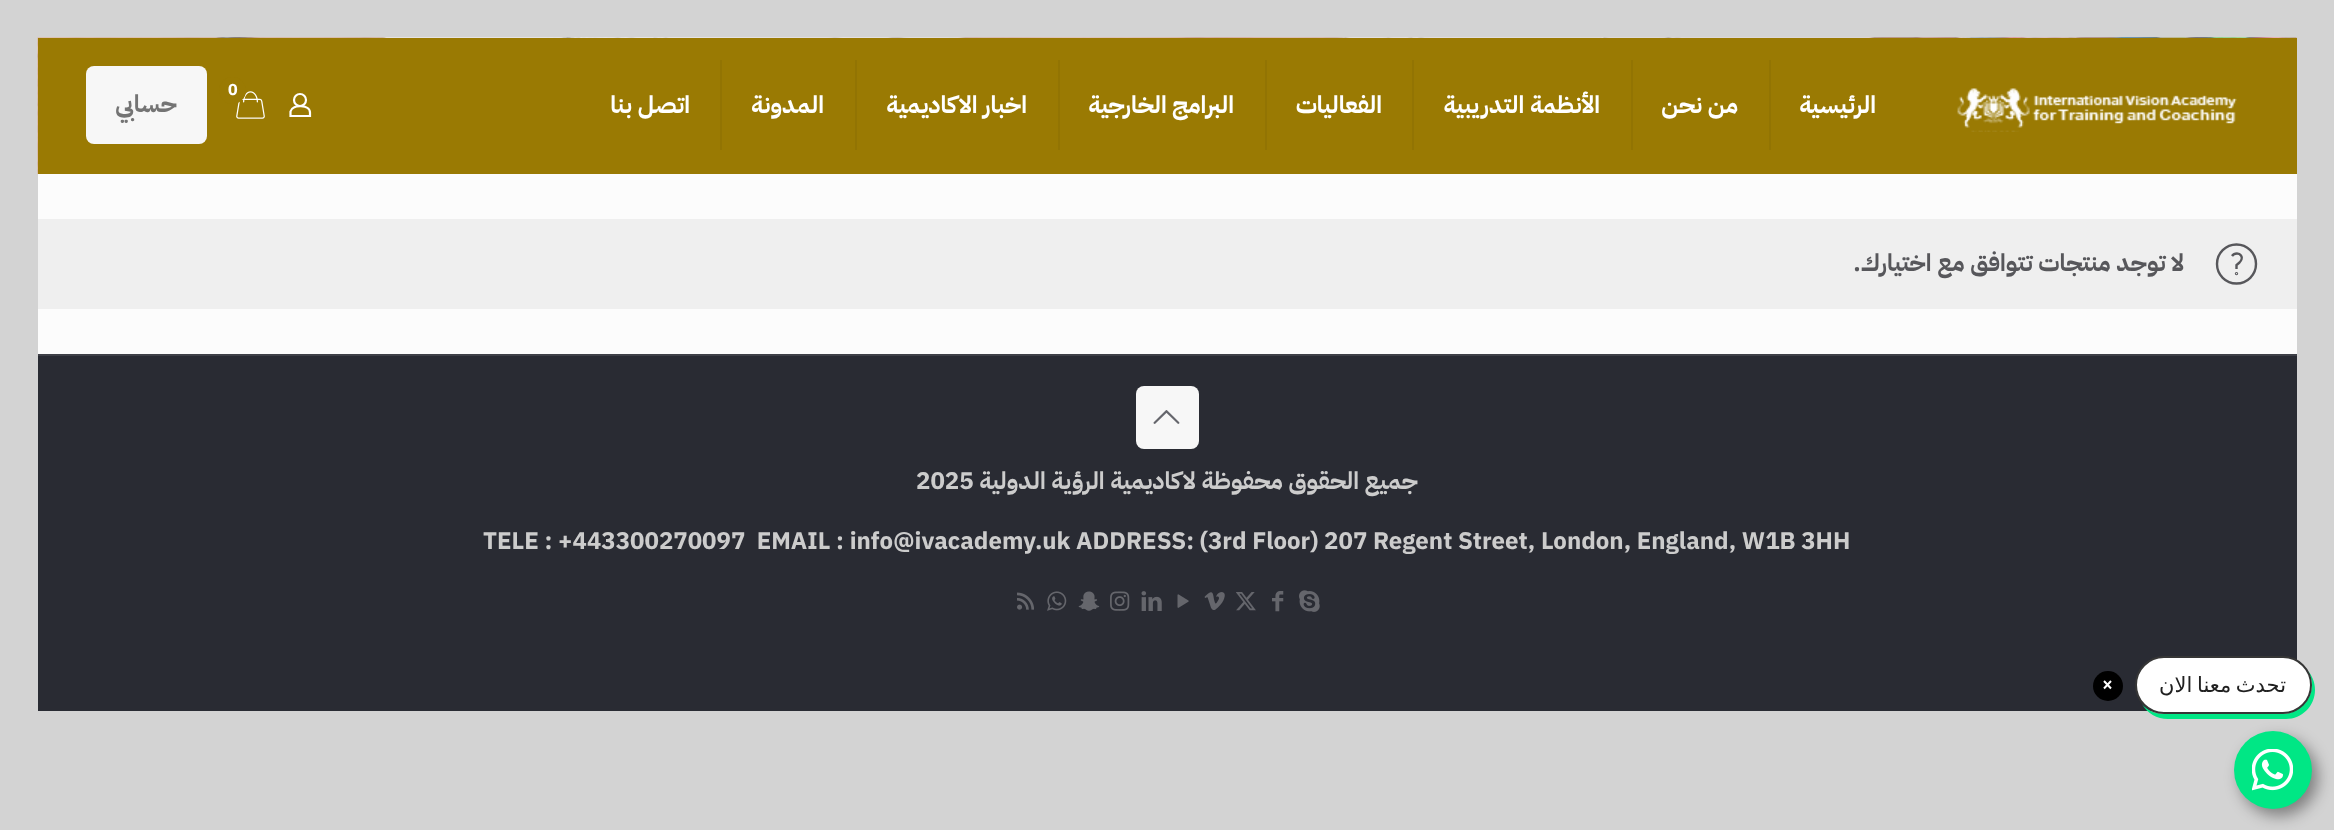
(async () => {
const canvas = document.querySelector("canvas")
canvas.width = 2334
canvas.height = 830
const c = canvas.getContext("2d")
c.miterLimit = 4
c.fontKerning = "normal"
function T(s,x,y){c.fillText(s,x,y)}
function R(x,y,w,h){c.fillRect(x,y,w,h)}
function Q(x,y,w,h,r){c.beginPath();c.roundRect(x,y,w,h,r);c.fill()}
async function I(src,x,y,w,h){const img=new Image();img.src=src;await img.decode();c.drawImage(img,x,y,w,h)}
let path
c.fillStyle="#d3d3d3"
R(0,0,2334,830)
c.fillStyle="#fcfcfc"
R(38,174,2259,180)
await I("1.png",37,37,2260,137)
c.fillStyle="#9a7a03"
R(38,38,2259,136)
await I("2.png",1957,88,280,44)
c.fillStyle="#927403"
R(1769,60,2,90)
c.direction="rtl"
c.font="bold 24px IBM Plex Sans Arabic"
c.fillStyle="#fff"
T("الرئيسية",1876,113)
c.fillStyle="#927403"
R(1631,60,2,90)
c.fillStyle="#fff"
T("من نحن",1738,113)
c.fillStyle="#927403"
R(1412,60,2,90)
c.fillStyle="#fff"
T("الأنظمة التدريبية",1600,113)
c.fillStyle="#927403"
R(1265,60,2,90)
c.fillStyle="#fff"
T("الفعاليات",1382,113)
c.fillStyle="#927403"
R(1058,60,2,90)
c.fillStyle="#fff"
T("البرامج الخارجية",1234,113)
c.fillStyle="#927403"
R(855,60,2,90)
c.fillStyle="#fff"
T("اخبار الاكاديمية",1027,113)
c.fillStyle="#927403"
R(720,60,2,90)
c.fillStyle="#fff"
T("المدونة",824,113)
T("اتصل بنا",690,113)
await I("3.png",236,91,29,28)
c.fillStyle="#9a7a03"
c.beginPath()
c.arc(232.5,90.5,13.5,0,7)
c.fill()
c.direction="ltr"
c.font="bold 16px IBM Plex Sans Arabic"
c.fillStyle="#fff"
T("0",228,95)
c.beginPath()
c.arc(300,100,6,0,7)
c.strokeStyle="#fff"
c.lineWidth=2.2
c.stroke()
path = new Path2D("M310 112.5v3.5h-19.5v-4.5c2-7.5 19.5-7 19.5 1z")
c.stroke(path)
c.fillStyle="#f7f7f7"
Q(86,66,121,78,8)
c.direction="rtl"
c.font="bold 24px IBM Plex Sans Arabic"
c.fillStyle="#747474"
T("حسابي",177,112)
c.fillStyle="#efefef"
R(38,219,2259,90)
c.beginPath()
c.arc(2236.5,264,19.5,0,7)
c.strokeStyle="#57575b"
c.lineWidth=2.4
c.stroke()
path = new Path2D("M2232 256c1-1.5 3-2.5 5-2.5c1.5 0 3 .5 4 2c1.5 2 .5 5-1.5 7l-3 2.5v4")
c.stroke(path)
c.beginPath()
c.arc(2236.5,273.6,.5,0,7)
c.stroke()
c.fillStyle="#57575b"
T("لا توجد منتجات تتوافق مع اختيارك.",2184,271)
c.fillStyle="#292b33"
R(38,356,2259,355)
c.fillStyle="#3e4047"
R(38,354,2259,2)
c.fillStyle="#f7f7f7"
Q(1136,386,63,63,8)
await I("4.png",1153,410,27,14)
c.fillStyle="#ccc"
T("جميع الحقوق محفوظة لاكاديمية الرؤية الدولية",1418,489)
c.direction="ltr"
T("2025",916,489)
T("TELE : +443300270097  EMAIL : info@ivacademy.uk ADDRESS: (3rd Floor) 207 Regent Street, London, England, W1B 3HH",483,549)
await I("5.png",1299,590,21,22)
await I("6.png",1272,591,12,21)
await I("7.png",1236,592,20,19)
await I("8.png",1204,592,21,18)
await I("9.png",1177,594,12,14)
await I("10.png",1141,591,21,20)
await I("11.png",1110,591,20,20)
await I("12.png",1078,591,22,20)
await I("13.png",1047,591,20,20)
await I("14.png",1017,592,17,18)
c.fillStyle="#00000066"
c.filter="blur(7.5px)"
c.beginPath()
c.roundRect(2240,738,78,78,39)
c.fill()
c.filter="none"
c.fillStyle="#00e785"
path = new Path2D("M2142 704c5 9 15 15 26 15h118c16 0 29-13 29-29c0-8-3-15-8-20c3 4 5 9 5 15c0 16-14 29-30 29h-118c-9 0-17-4-22-10z")
c.fill(path)
c.fillStyle="#fff"
c.beginPath()
c.roundRect(2136,657,175,56,28)
c.fill()
c.strokeStyle="#363636"
c.lineWidth=2
c.stroke()
c.wordSpacing="-2px"
c.direction="rtl"
c.font="21px DejaVu Sans"
c.fillStyle="#202020"
T("تحدث معنا الان",2286,692)
c.fillStyle="#000"
c.beginPath()
c.arc(2108,686,15,0,7)
c.fill()
path = new Path2D("M2104 681l7 7.5m-7 0l7-7.5")
c.strokeStyle="#fff"
c.stroke(path)
c.fillStyle="#00e785"
c.beginPath()
c.arc(2273,770,39,0,7)
c.fill()
await I("15.png",2252,749,41,42)
})()
